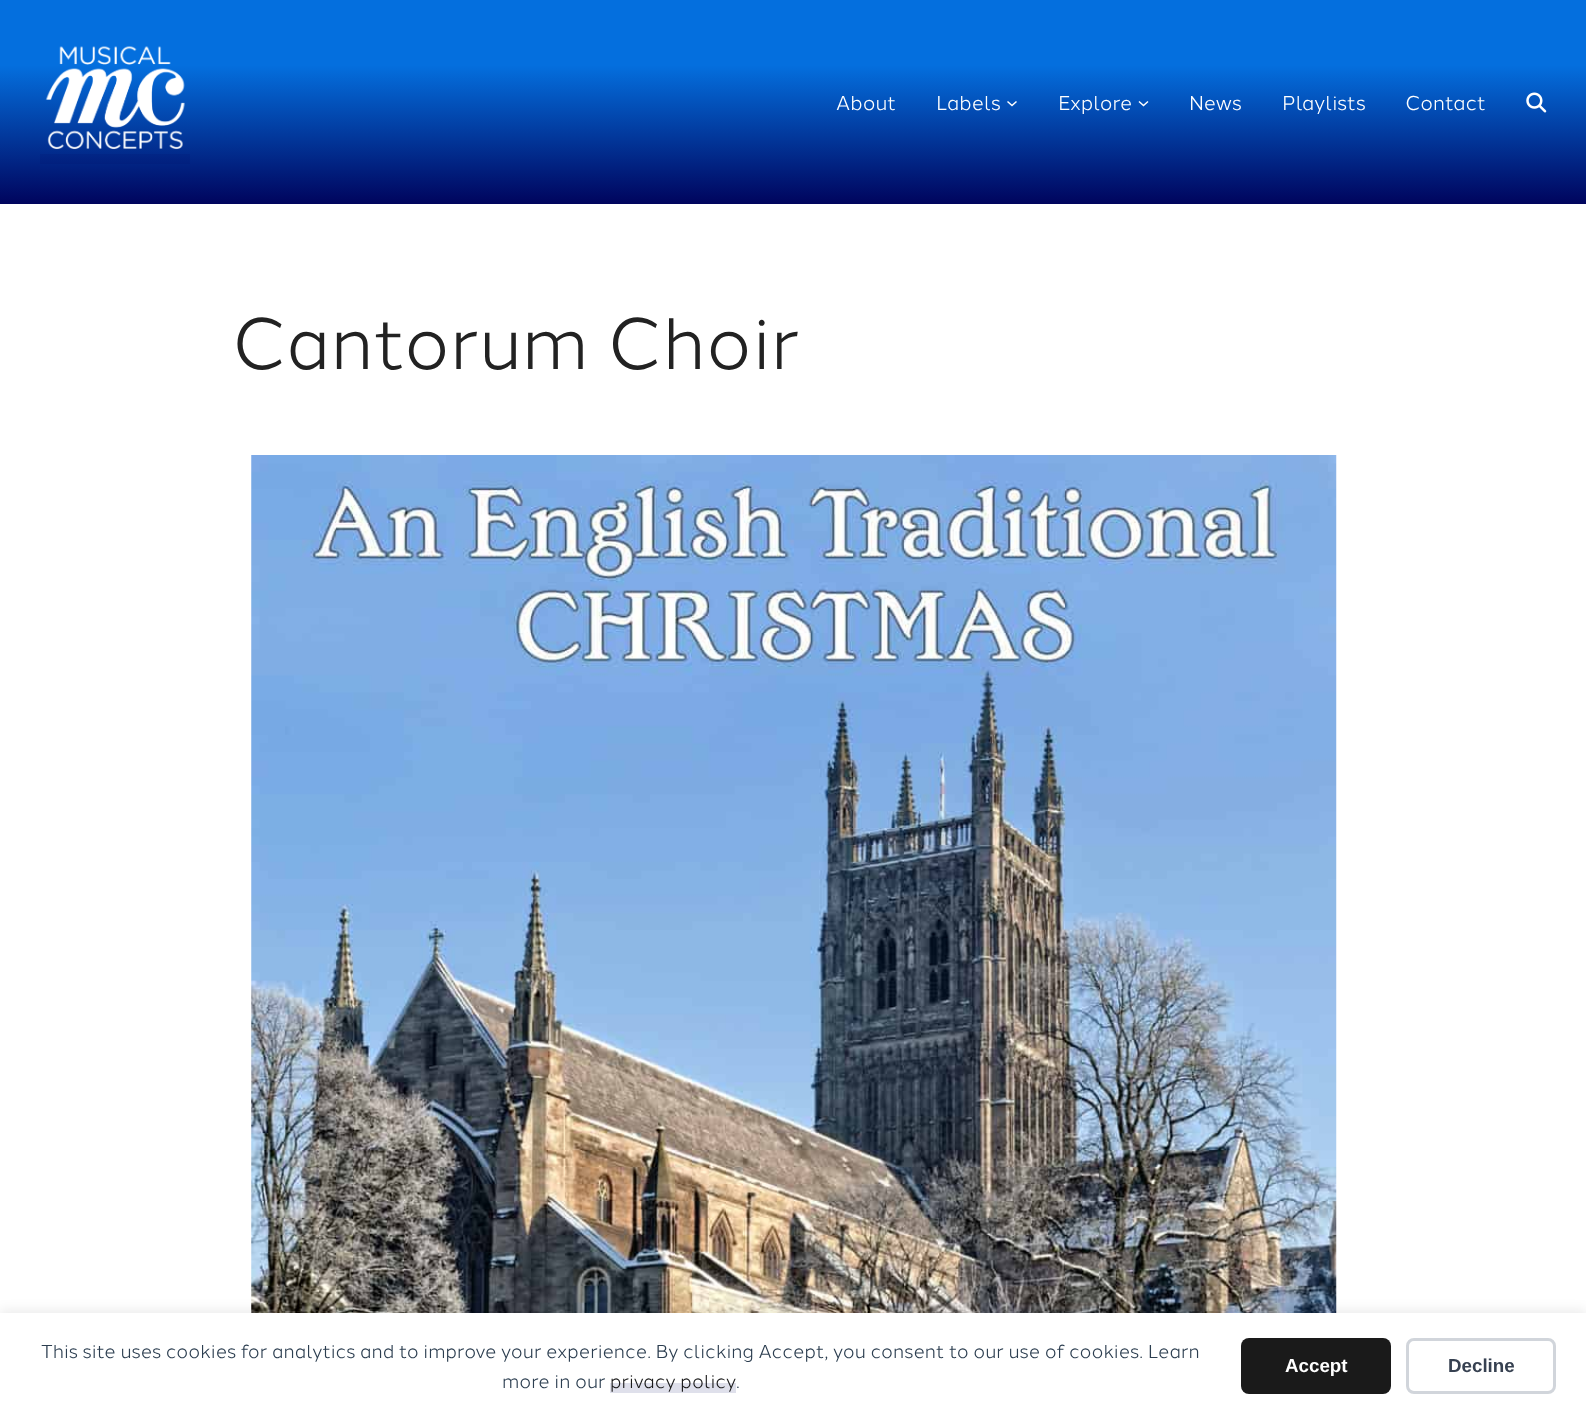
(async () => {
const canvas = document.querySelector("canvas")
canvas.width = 1586
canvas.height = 1417
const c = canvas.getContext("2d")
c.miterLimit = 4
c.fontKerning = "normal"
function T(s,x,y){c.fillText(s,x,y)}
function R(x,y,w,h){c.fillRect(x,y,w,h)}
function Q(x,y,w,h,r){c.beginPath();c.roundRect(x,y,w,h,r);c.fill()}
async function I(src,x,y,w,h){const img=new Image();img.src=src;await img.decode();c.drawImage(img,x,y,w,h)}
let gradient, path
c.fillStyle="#fff"
R(0,0,1586,1417)
gradient = c.createLinearGradient(793,0,793,204)
gradient.addColorStop(.32,"#046fde")
gradient.addColorStop(1,"#00045d")
c.fillStyle = gradient
R(0,0,1586,204)
gradient = c.createLinearGradient(793,0,793,204)
gradient.addColorStop(.32,"#0462cf")
gradient.addColorStop(1,"#00045d")
c.fillStyle = gradient
R(40,154,150,10)
await I("1.png",45,46,140,104)
c.font="20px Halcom"
c.fillStyle="#fff"
T("About",836,110)
T("Labels",936,110)
path = new Path2D("M1007.5 101.5l4.5 4l4.5-4")
c.strokeStyle="#fff"
c.lineWidth=1.5
c.stroke(path)
T("Explore",1058,110)
path = new Path2D("M1139 101.5l4.5 4l4.5-4")
c.stroke(path)
T("News",1189,110)
T("Playlists",1282,110)
T("Contact",1405,110)
await I("2.png",1526,92,21,21)
c.font="72.5px Halcom"
c.fillStyle="#222"
T("Cantorum Choir",231,369)
await I("3.png",251,455,1086,858)
c.fillStyle="#00000014"
c.filter="blur(6px)"
c.beginPath()
c.rect(0,1310,1586,105)
c.fill()
c.filter="none"
c.fillStyle="#fff"
R(0,1313,1586,104)
c.font="18.75px Halcom"
c.fillStyle="#2c3e50"
T("This site uses cookies for analytics and to improve your experience. By clicking Accept, you consent to our use of cookies. Learn",41,1358)
T("more in our",502,1388)
c.fillStyle="#dfe0eb"
R(610,1383,126,10)
c.fillStyle="#1a1a1a"
T("privacy policy",610,1388)
c.fillStyle="#2c3e50"
T(".",736,1388)
c.fillStyle="#1a1a1a"
Q(1241,1338,150,56,8)
c.font="bold 18.75px Liberation Sans"
c.fillStyle="#fff"
T("Accept",1285,1372)
c.beginPath()
c.roundRect(1407.5,1339.5,147,53,6.5)
c.strokeStyle="#d1d5db"
c.lineWidth=3
c.stroke()
c.fillStyle="#374151"
T("Decline",1448,1372)
})()
